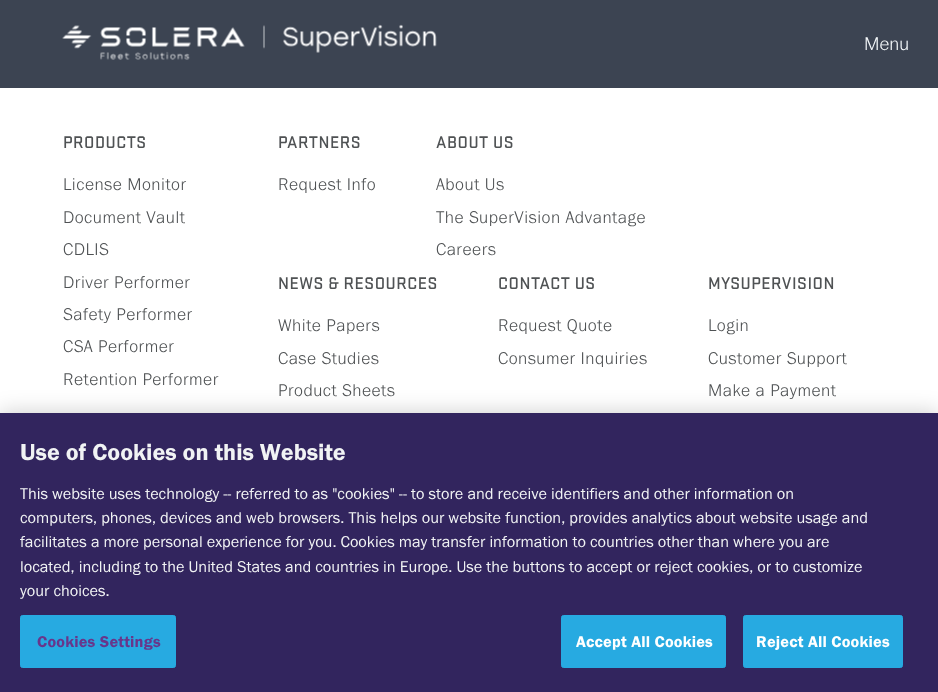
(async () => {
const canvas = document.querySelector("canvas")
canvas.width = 938
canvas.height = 692
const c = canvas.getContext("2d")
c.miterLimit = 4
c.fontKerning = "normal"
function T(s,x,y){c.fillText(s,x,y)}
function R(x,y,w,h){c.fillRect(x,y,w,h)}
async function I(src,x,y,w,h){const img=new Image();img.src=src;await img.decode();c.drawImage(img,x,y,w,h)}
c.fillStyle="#fff"
R(0,0,938,692)
c.fillStyle="#3c4452"
R(0,0,938,88)
await I("1.png",62,24,375,36)
c.font="19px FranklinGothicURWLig"
c.fillStyle="#f4f8fa"
T("Menu",864,50)
c.letterSpacing="0.5px"
c.font="500 17.5px 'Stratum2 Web'"
c.fillStyle="#4f5254"
T("PRODUCTS",63,148)
c.font="17.5px FranklinGothicURWLig"
T("License Monitor",63,190)
T("Document Vault",63,223)
T("CDLIS",63,255)
T("Driver Performer",63,288)
T("Safety Performer",63,320)
T("CSA Performer",63,352)
T("Retention Performer",63,385)
c.font="500 17.5px 'Stratum2 Web'"
T("PARTNERS",278,148)
c.font="17.5px FranklinGothicURWLig"
T("Request Info",278,190)
c.font="500 17.5px 'Stratum2 Web'"
T("ABOUT US",436,148)
c.font="17.5px FranklinGothicURWLig"
T("About Us",436,190)
T("The SuperVision Advantage",436,223)
T("Careers",436,255)
c.font="500 17.5px 'Stratum2 Web'"
T("NEWS & RESOURCES",278,289)
c.font="17.5px FranklinGothicURWLig"
T("White Papers",278,331)
T("Case Studies",278,364)
T("Product Sheets",278,396)
c.font="500 17.5px 'Stratum2 Web'"
T("CONTACT US",498,289)
c.font="17.5px FranklinGothicURWLig"
T("Request Quote",498,331)
T("Consumer Inquiries",498,364)
c.font="500 17.5px 'Stratum2 Web'"
T("MYSUPERVISION",708,289)
c.font="17.5px FranklinGothicURWLig"
T("Login",708,331)
T("Customer Support",708,364)
T("Make a Payment",708,396)
c.fillStyle="#00000033"
c.filter="blur(11px)"
c.beginPath()
c.rect(0,413,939,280)
c.fill()
c.filter="none"
c.fillStyle="#32255e"
R(0,413,938,279)
c.letterSpacing="0px"
c.font="24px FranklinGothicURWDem"
c.fillStyle="#f1f3f4"
T("Use of Cookies on this Website",20,460)
c.font="16.25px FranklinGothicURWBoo"
T("This website uses technology -- referred to as \"cookies\" -- to store and receive identifiers and other information on",20,499)
T("computers, phones, devices and web browsers. This helps our website function, provides analytics about website usage and",20,523)
T("facilitates a more personal experience for you. Cookies may transfer information to countries other than where you are",20,547)
T("located, including to the United States and countries in Europe. Use the buttons to accept or reject cookies, or to customize",20,572)
T("your choices.",20,596)
c.fillStyle="#27aae1"
c.beginPath()
c.roundRect(20.5,615.5,155,52,2)
c.fill()
c.strokeStyle="#27aae1"
c.stroke()
c.letterSpacing="0.2px"
c.font="16.25px FranklinGothicURWDem"
c.fillStyle="#68368b"
T("Cookies Settings",37,647)
c.fillStyle="#27aae1"
c.beginPath()
c.roundRect(561.5,615.5,164,52,2)
c.fill()
c.stroke()
c.fillStyle="#fff"
T("Accept All Cookies",576,647)
c.fillStyle="#27aae1"
c.beginPath()
c.roundRect(743.5,615.5,159,52,2)
c.fill()
c.stroke()
c.fillStyle="#fff"
T("Reject All Cookies",756,647)
})()
